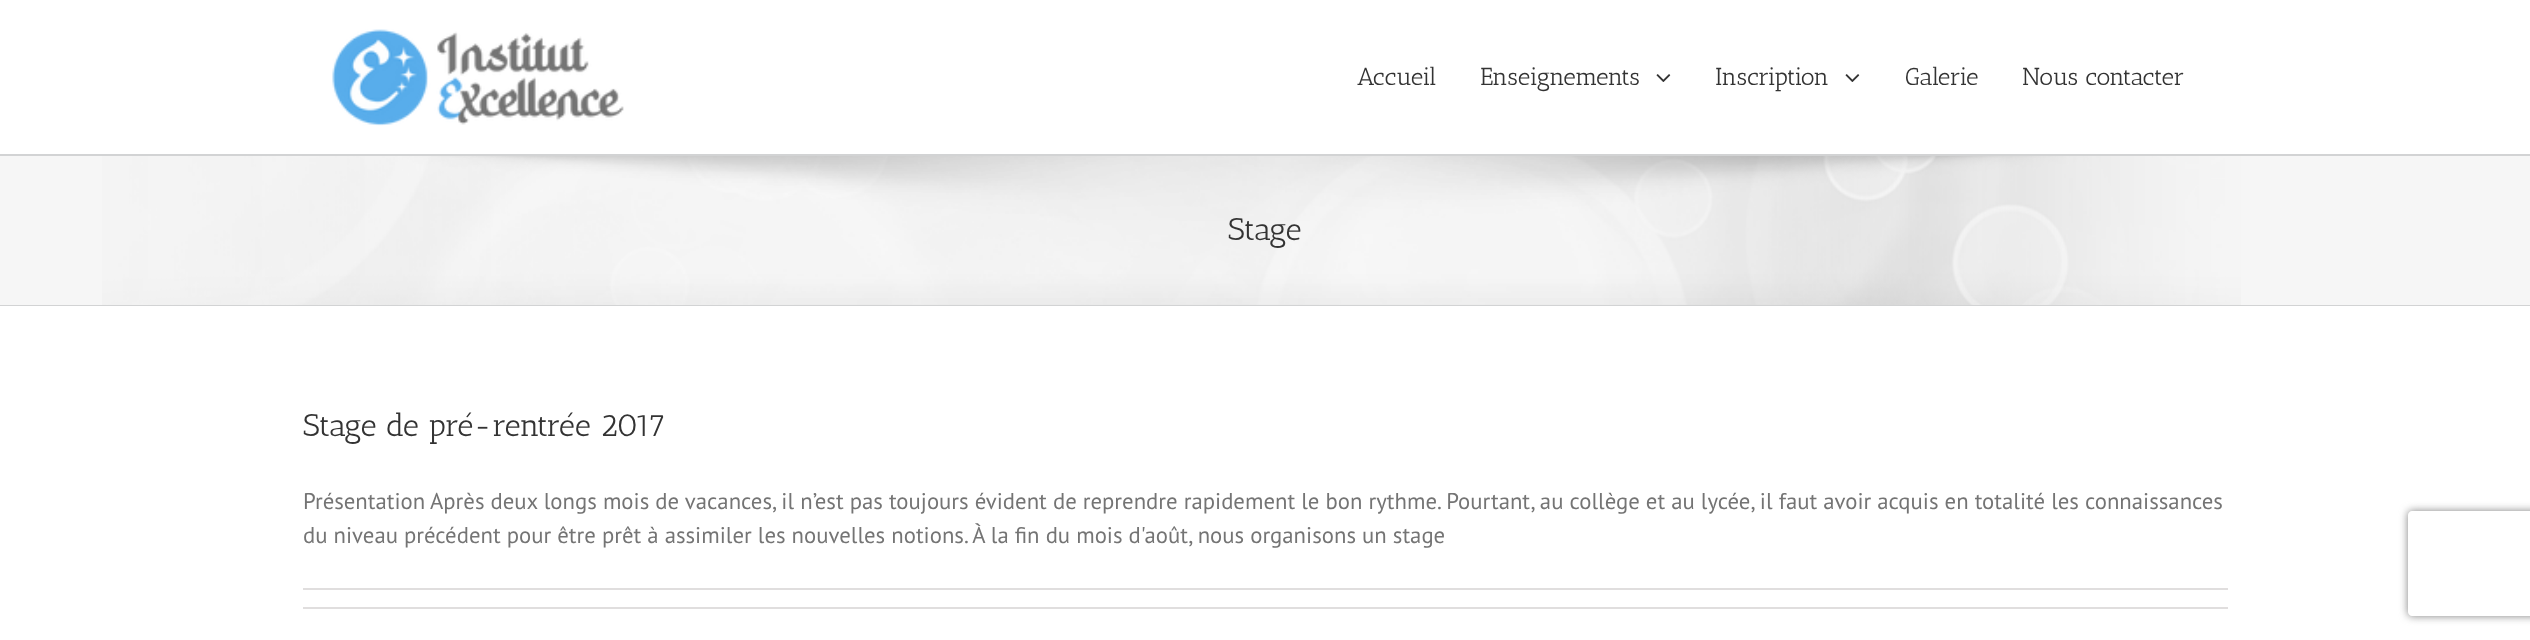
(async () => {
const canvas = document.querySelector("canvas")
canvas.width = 2530
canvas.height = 640
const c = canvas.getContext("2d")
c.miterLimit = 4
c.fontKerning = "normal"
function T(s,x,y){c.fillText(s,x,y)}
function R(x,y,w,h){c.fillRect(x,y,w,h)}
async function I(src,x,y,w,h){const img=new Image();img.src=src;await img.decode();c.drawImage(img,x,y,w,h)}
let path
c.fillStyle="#fff"
R(0,0,2530,640)
await I("1.png",332,29,292,97)
c.font="24.5px Antic Slab"
c.fillStyle="#333"
T("Accueil",1357,85)
T("Enseignements",1480,85)
await I("2.png",1656,74,15,8)
T("Inscription",1715,85)
await I("2.png",1845,74,15,8)
T("Galerie",1905,85)
T("Nous contacter",2022,85)
c.fillStyle="#f6f6f6"
R(0,156,2530,149)
await I("3.png",102,156,2139,149)
c.fillStyle="#d2d3d4"
R(0,154,2530,2)
R(0,305,2530,1)
c.font="31.5px Antic Slab"
c.fillStyle="#333"
T("Stage",1228,240)
T("Stage de pré-rentrée 2017",303,436)
c.font="22.75px PT Sans"
c.fillStyle="#747474"
T("Présentation",303,509)
T("Après deux longs mois de vacances, il n’est pas toujours évident de reprendre rapidement le bon rythme. Pourtant, au collège et au lycée, il faut avoir acquis en totalité les connaissances",430,509)
T("du niveau précédent pour être prêt à assimiler les nouvelles notions. À la fin du mois d'août, nous organisons un stage",303,543)
c.fillStyle="#e0dede"
R(303,588,1925,2)
R(303,607,1925,2)
c.save()
path = new Path2D("M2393 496h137v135h-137zm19 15h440c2 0 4 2 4 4v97c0 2-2 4-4 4h-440c-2 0-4-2-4-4v-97c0-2 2-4 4-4z")
c.clip(path,"evenodd")
c.fillStyle="#808080"
c.filter="blur(4.5px)"
c.beginPath()
c.roundRect(2408,511,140,105,4)
c.fill()
c.filter="none"
c.restore()
})()
